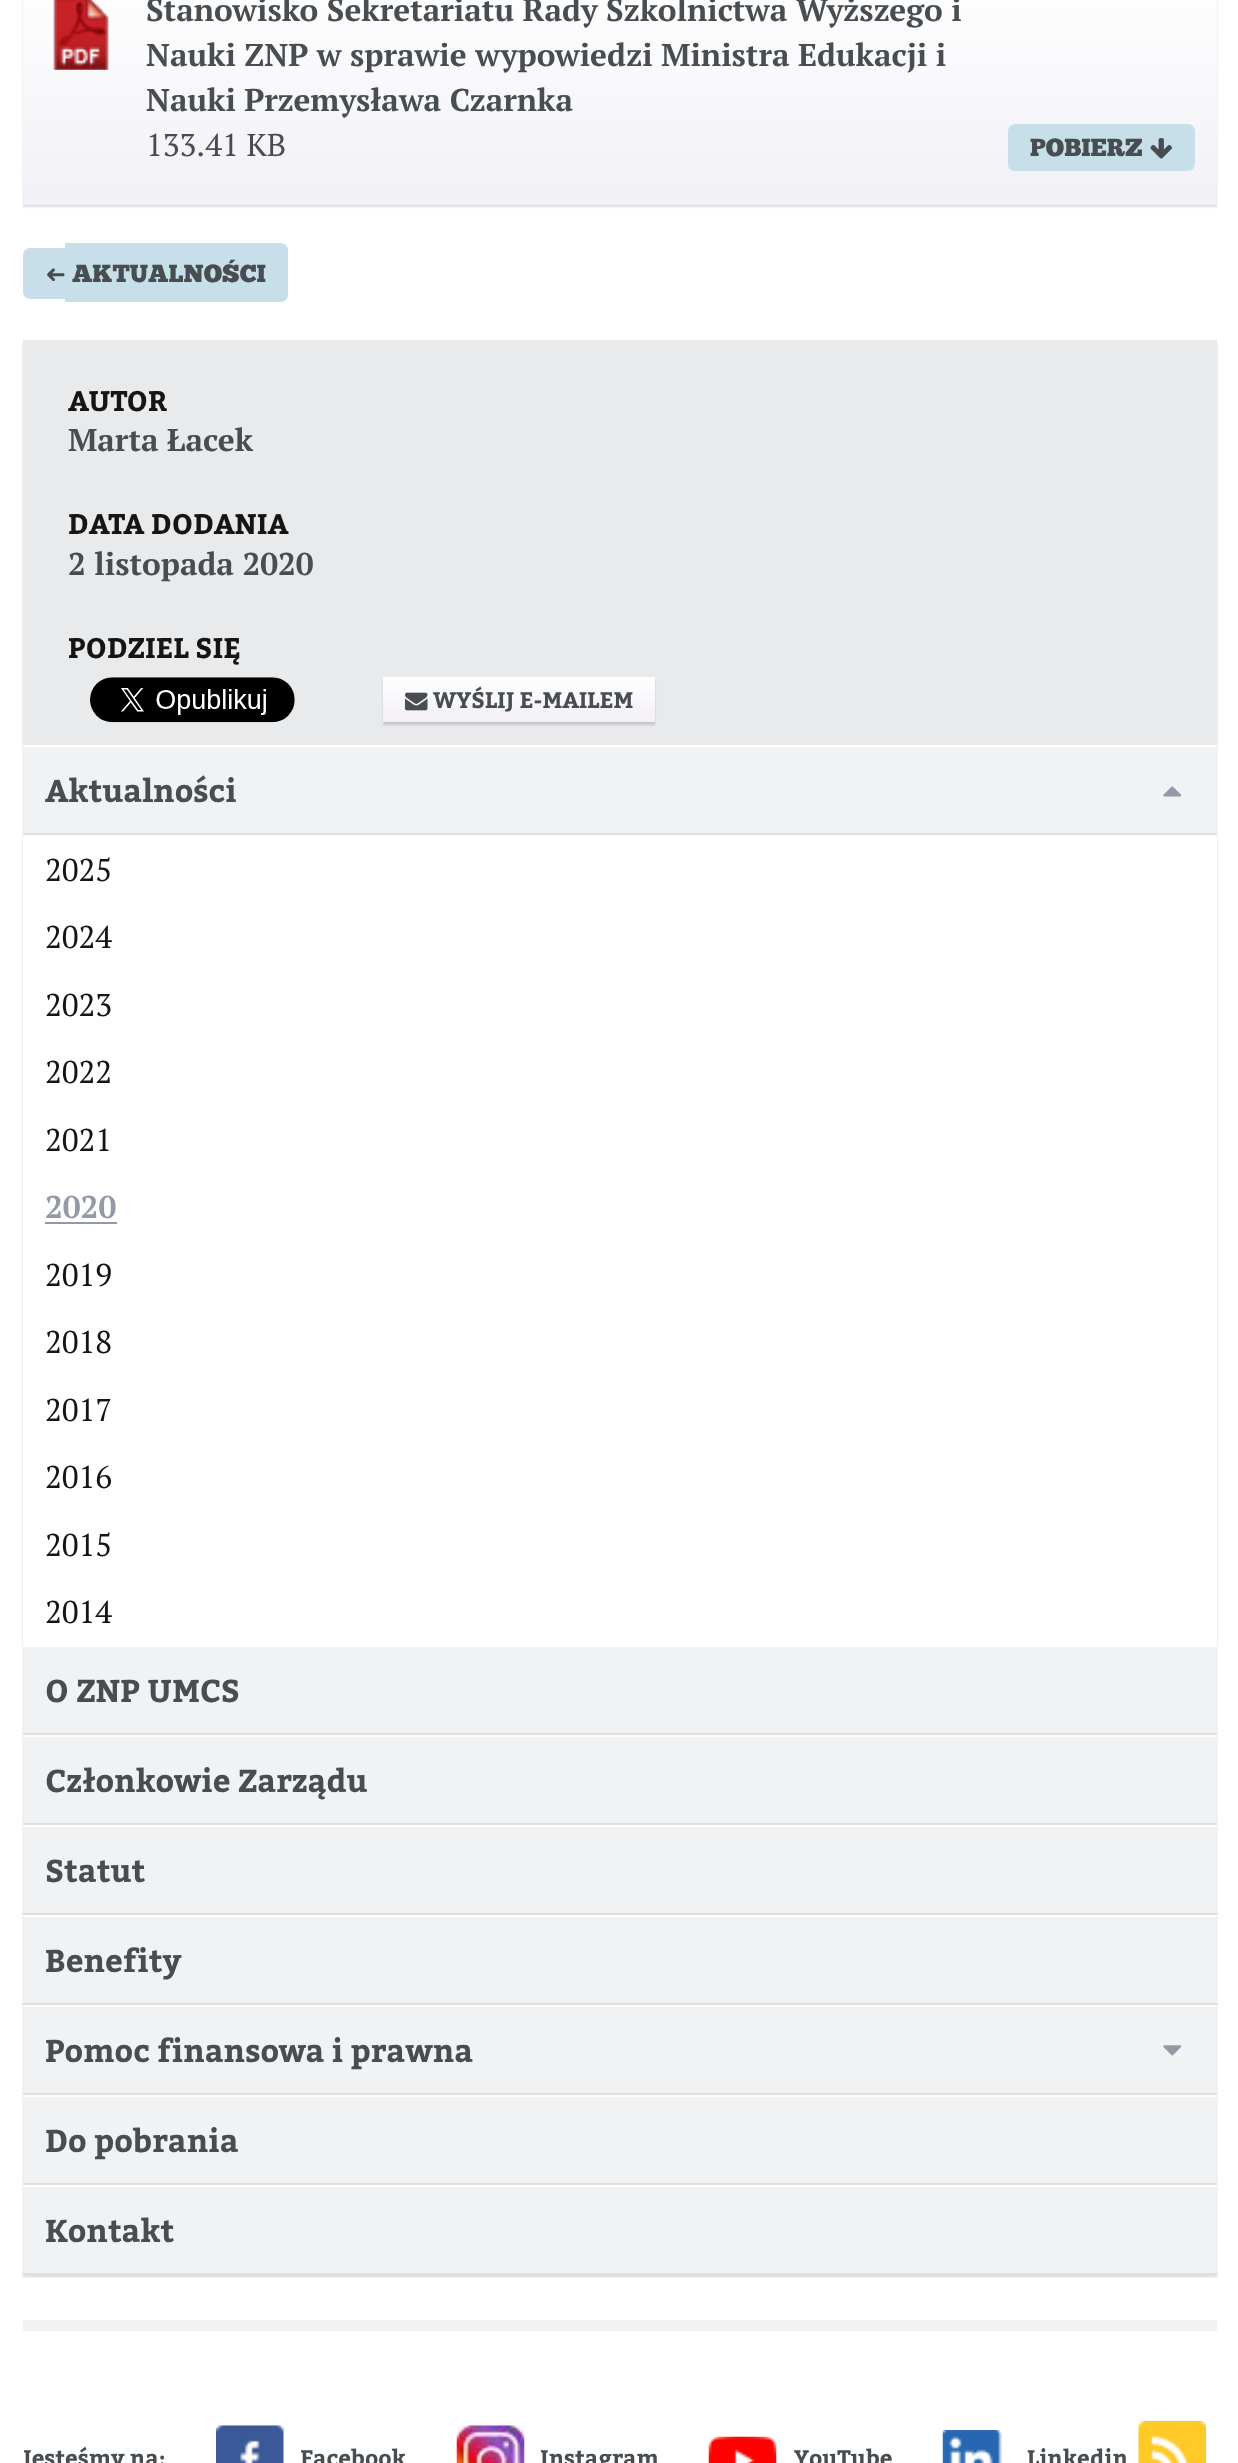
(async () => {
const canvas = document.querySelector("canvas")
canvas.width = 1238
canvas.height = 2463
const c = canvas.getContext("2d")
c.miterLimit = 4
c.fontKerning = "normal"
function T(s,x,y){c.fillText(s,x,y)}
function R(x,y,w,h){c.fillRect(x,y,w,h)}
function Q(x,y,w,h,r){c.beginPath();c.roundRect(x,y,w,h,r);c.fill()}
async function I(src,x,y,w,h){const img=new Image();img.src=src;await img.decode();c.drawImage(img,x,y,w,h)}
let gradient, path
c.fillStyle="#fff"
R(0,0,1238,2463)
c.fillStyle="#00000026"
c.filter="blur(1px)"
c.beginPath()
c.rect(23,-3,1194,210)
c.fill()
c.filter="none"
gradient = c.createLinearGradient(620,-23,620,205)
gradient.addColorStop(0,"#fff")
gradient.addColorStop(1,"#f1f0f6")
c.fillStyle = gradient
R(23,0,1194,205)
await I("1.png",53,0,56,70)
c.font="bold 31.5px PT Serif"
c.fillStyle="#474d50"
T("Stanowisko Sekretariatu Rady Szkolnictwa Wyższego i",146,21)
T("Nauki ZNP w sprawie wypowiedzi Ministra Edukacji i",146,66)
T("Nauki Przemysława Czarnka",146,111)
c.font="31.5px PT Serif"
T("133.41 KB",146,156)
c.fillStyle="#c7dfe9"
Q(1008,124,187,47,7)
c.font="24.75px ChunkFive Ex"
c.fillStyle="#474d50"
T("POBIERZ",1030,156)
await I("2.png",1150,138,22,21)
c.fillStyle="#c7dfe9"
c.beginPath()
c.roundRect(23,248,42,51,[7,0,0,7])
c.fill()
c.beginPath()
c.roundRect(65,243,223,59,[0,7,7,0])
c.fill()
c.font="24.75px DejaVu Sans"
c.fillStyle="#474d50"
c.save()
c.translate(66,267)
c.rotate(180 * Math.PI / 180)
c.fillText("➜",0,0)
c.restore()
c.font="24.75px ChunkFive Ex"
T("AKTUALNOŚCI",72,282)
c.fillStyle="#00000026"
c.filter="blur(1px)"
c.beginPath()
c.rect(23,342,1194,124)
c.fill()
c.filter="none"
c.fillStyle="#e9eaec"
R(23,340,1194,124)
c.font="bold 28.25px Bitter"
c.fillStyle="#151515"
T("AUTOR",68,411)
c.font="bold 31.5px PT Serif"
c.fillStyle="#474d50"
T("Marta Łacek",68,451)
c.fillStyle="#00000026"
c.filter="blur(1px)"
c.beginPath()
c.rect(23,466,1194,124)
c.fill()
c.filter="none"
c.fillStyle="#e9eaec"
R(23,464,1194,123)
c.font="bold 28.25px Bitter"
c.fillStyle="#151515"
T("DATA DODANIA",68,534)
c.font="bold 31.5px PT Serif"
c.fillStyle="#474d50"
T("2 listopada 2020",68,575)
c.fillStyle="#00000026"
c.filter="blur(1px)"
c.beginPath()
c.rect(23,590,1194,157)
c.fill()
c.filter="none"
c.fillStyle="#e9eaec"
R(23,587,1194,158)
c.font="bold 28.25px Bitter"
c.fillStyle="#151515"
T("PODZIEL SIĘ",68,658)
await I("3.png",90,677,205,46)
c.fillStyle="#00000026"
c.filter="blur(1px)"
c.beginPath()
c.rect(383,680,272,45)
c.fill()
c.filter="none"
gradient = c.createLinearGradient(519,677,519,722)
gradient.addColorStop(0,"#fff")
gradient.addColorStop(1,"#f2eff6")
c.fillStyle = gradient
R(383,677,272,45)
await I("4.png",405,692,23,19)
c.font="bold 22.5px Bitter"
c.fillStyle="#474d50"
T("WYŚLIJ E-MAILEM",433,708)
c.save()
path = new Path2D("M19 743h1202v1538h-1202zm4 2h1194v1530h-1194z")
c.clip(path,"evenodd")
c.fillStyle="#00000026"
c.filter="blur(1px)"
c.beginPath()
c.rect(23,747,1194,1530)
c.fill()
c.filter="none"
c.restore()
c.fillStyle="#f1f2f4"
R(23,747,1194,86)
c.fillStyle="#fff"
R(23,745,1194,2)
c.fillStyle="#dfdfdf"
R(23,833,1194,2)
c.font="bold 31.5px Bitter"
c.fillStyle="#474d50"
T("Aktualności",45,802)
await I("5.png",1163,786,19,11)
c.font="31.5px PT Serif"
c.fillStyle="#151515"
T("2025",45,881)
T("2024",45,948)
T("2023",45,1016)
T("2022",45,1083)
T("2021",45,1151)
c.font="bold 31.5px PT Serif"
c.fillStyle="#9399a5"
T("2020",45,1218)
R(45,1222,72,2)
c.font="31.5px PT Serif"
c.fillStyle="#151515"
T("2019",45,1286)
T("2018",45,1353)
T("2017",45,1421)
T("2016",45,1488)
T("2015",45,1556)
T("2014",45,1623)
c.fillStyle="#f1f2f4"
R(23,1647,1194,86)
c.fillStyle="#dfdfdf"
R(23,1733,1194,2)
c.font="bold 31.5px Bitter"
c.fillStyle="#474d50"
T("O ZNP UMCS",45,1702)
c.fillStyle="#f1f2f4"
R(23,1737,1194,86)
c.fillStyle="#dfdfdf"
R(23,1823,1194,2)
c.fillStyle="#474d50"
T("Członkowie Zarządu",45,1792)
c.fillStyle="#f1f2f4"
R(23,1827,1194,86)
c.fillStyle="#dfdfdf"
R(23,1913,1194,2)
c.fillStyle="#474d50"
T("Statut",45,1882)
c.fillStyle="#f1f2f4"
R(23,1917,1194,86)
c.fillStyle="#dfdfdf"
R(23,2003,1194,2)
c.fillStyle="#474d50"
T("Benefity",45,1972)
c.fillStyle="#f1f2f4"
R(23,2007,1194,86)
c.fillStyle="#dfdfdf"
R(23,2093,1194,2)
c.fillStyle="#474d50"
T("Pomoc finansowa i prawna",45,2062)
await I("6.png",1163,2045,19,11)
c.fillStyle="#f1f2f4"
R(23,2097,1194,86)
c.fillStyle="#dfdfdf"
R(23,2183,1194,2)
c.fillStyle="#474d50"
T("Do pobrania",45,2152)
c.fillStyle="#f1f2f4"
R(23,2187,1194,86)
c.fillStyle="#dfdfdf"
R(23,2273,1194,2)
c.fillStyle="#474d50"
T("Kontakt",45,2242)
c.fillStyle="#f1f2f4"
R(23,2320,1194,11)
c.font="bold 22.5px Bitter"
c.fillStyle="#474d50"
T("Jesteśmy na:",23,2466)
await I("7.png",216,2425,68,38)
T("Facebook",300,2466)
await I("8.png",456,2425,69,38)
T("Instagram",540,2466)
await I("9.png",708,2436,69,27)
T("YouTube",794,2466)
await I("10.png",942,2430,60,33)
T("Linkedin",1027,2466)
await I("11.png",1138,2421,68,42)
})()
